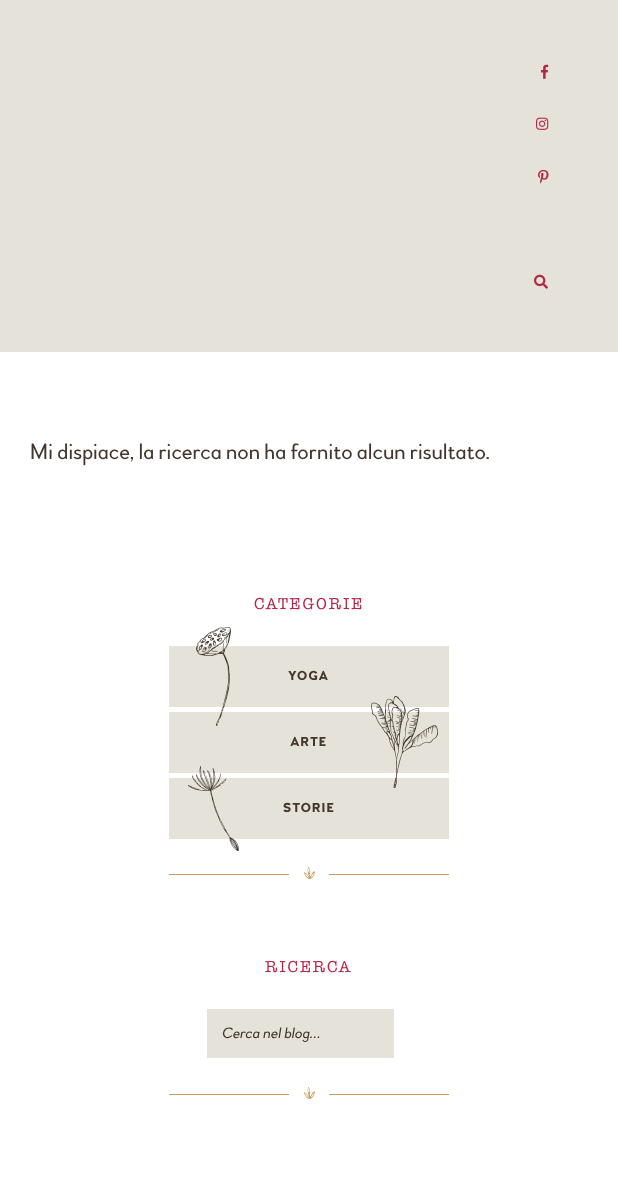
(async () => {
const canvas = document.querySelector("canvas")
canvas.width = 618
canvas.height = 1188
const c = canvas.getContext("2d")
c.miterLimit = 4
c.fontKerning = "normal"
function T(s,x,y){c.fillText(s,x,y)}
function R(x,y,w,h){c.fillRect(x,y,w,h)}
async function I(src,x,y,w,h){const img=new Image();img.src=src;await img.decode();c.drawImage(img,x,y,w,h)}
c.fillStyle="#fff"
R(0,0,618,1188)
c.fillStyle="#e5e3d9"
R(0,0,618,352)
await I("1.png",541,64,8,15)
await I("2.png",536,117,13,13)
await I("3.png",538,169,11,15)
await I("4.png",534,274,14,15)
c.font="22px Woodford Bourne"
c.fillStyle="#42362f"
T("Mi dispiace, la ricerca non ha fornito alcun risultato.",30,459)
c.fillStyle="#ca9c58"
R(169,874,280,1)
c.letterSpacing="2px"
c.font="15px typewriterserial"
c.fillStyle="#b42646"
T("CATEGORIE",254,609)
c.fillStyle="#e5e3d9"
R(169,646,280,61)
R(169,712,280,61)
await I("5.png",196,627,35,99)
c.letterSpacing="1px"
c.font="bold 13px Woodford Bourne"
c.fillStyle="#42362f"
T("YOGA",288,680)
T("ARTE",290,746)
c.fillStyle="#e5e3d9"
R(169,778,280,61)
await I("6.png",371,696,67,92)
await I("7.png",188,766,51,85)
c.fillStyle="#42362f"
T("STORIE",283,812)
c.fillStyle="#fff"
R(289,874,40,1)
await I("8.png",304,867,11,12)
c.fillStyle="#ca9c58"
R(169,1094,280,1)
c.letterSpacing="2px"
c.font="15px typewriterserial"
c.fillStyle="#b42646"
T("RICERCA",265,972)
c.fillStyle="#e5e3d9"
R(207,1009,187,49)
c.letterSpacing="0px"
c.font="italic 15px Woodford Bourne"
c.fillStyle="#42362f"
T("Cerca nel blog...",222,1038)
c.fillStyle="#fff"
R(289,1094,40,1)
await I("8.png",304,1087,11,12)
})()
